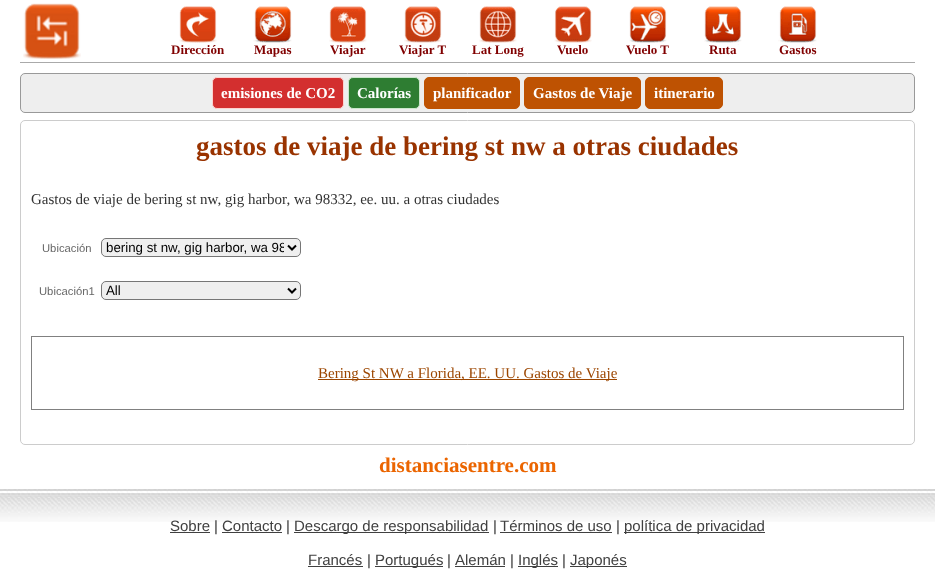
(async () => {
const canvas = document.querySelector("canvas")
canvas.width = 935
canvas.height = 588
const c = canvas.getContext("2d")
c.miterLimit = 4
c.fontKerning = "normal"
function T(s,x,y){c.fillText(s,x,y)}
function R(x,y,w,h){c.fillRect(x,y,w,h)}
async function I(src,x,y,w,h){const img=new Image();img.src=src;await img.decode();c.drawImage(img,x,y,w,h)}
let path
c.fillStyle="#fff"
R(0,0,935,588)
c.fillStyle="#aaa"
R(20,62,895,1)
await I("1.png",23,3,58,56)
await I("2.png",179,6,38,37)
c.font="bold 13px Liberation Serif"
c.fillStyle="#800000"
T("Dirección",171,54)
await I("3.png",253,6,39,39)
T("Mapas",254,54)
await I("4.png",329,6,38,37)
T("Viajar",330,54)
await I("5.png",404,6,38,37)
T("Viajar T",399,54)
await I("6.png",479,6,38,37)
T("Lat Long",472,54)
await I("7.png",554,6,38,37)
T("Vuelo",557,54)
await I("8.png",629,6,38,39)
T("Vuelo T",626,54)
await I("9.png",704,6,38,39)
T("Ruta",709,54)
await I("10.png",778,6,39,39)
T("Gastos",779,54)
c.fillStyle="#eee"
c.beginPath()
c.roundRect(20.5,73.5,894,39,4.5)
c.fill()
c.strokeStyle="#999"
c.stroke()
c.fillStyle="#d32f2f"
c.beginPath()
c.roundRect(212.5,77.5,131,31,4.5)
c.fill()
c.strokeStyle="#fcd2cf"
c.stroke()
c.font="bold 15px Liberation Serif"
c.fillStyle="#fff"
T("emisiones de CO2",221,98)
c.fillStyle="#2e7d32"
c.beginPath()
c.roundRect(348.5,77.5,71,31,4.5)
c.fill()
c.strokeStyle="#cae8cb"
c.stroke()
c.fillStyle="#fff"
T("Calorías",357,98)
c.fillStyle="#be5202"
c.beginPath()
c.roundRect(424.5,77.5,95,31,4.5)
c.fill()
c.strokeStyle="#be5202"
c.stroke()
c.fillStyle="#fff"
T("planificador",433,98)
c.fillStyle="#be5202"
c.beginPath()
c.roundRect(524.5,77.5,116,31,4.5)
c.fill()
c.stroke()
c.fillStyle="#fff"
T("Gastos de Viaje",533,98)
c.fillStyle="#be5202"
c.beginPath()
c.roundRect(645.5,77.5,77,31,4.5)
c.fill()
c.stroke()
c.fillStyle="#fff"
T("itinerario",654,98)
c.beginPath()
c.roundRect(20.5,120.5,894,324,4.5)
c.strokeStyle="#ccc"
c.stroke()
c.font="bold 27px Liberation Serif"
c.fillStyle="#930"
T("gastos de viaje de bering st nw a otras ciudades",196,155)
c.font="15px Liberation Serif"
c.fillStyle="#333"
T("Gastos de viaje de bering st nw, gig harbor, wa 98332, ee. uu. a otras ciudades",31,204)
c.font="11.25px Liberation Sans"
c.fillStyle="#666"
T("Ubicación",42,252)
c.fillStyle="#efefef"
c.beginPath()
c.roundRect(101.5,238.5,199,18,4.5)
c.fill()
c.strokeStyle="#767676"
c.stroke()
path = new Path2D("M288 245.5l4 4l4-4")
c.strokeStyle="#000"
c.lineWidth=2
c.stroke(path)
c.save()
c.beginPath()
c.rect(106,239,178,17)
c.clip()
c.font="13.3px Liberation Sans"
c.fillStyle="#000"
T("bering st nw, gig harbor, wa 98",106,252)
c.restore()
c.fillStyle="#666"
T("Ubicación1",39,295)
c.fillStyle="#efefef"
c.beginPath()
c.roundRect(101.5,281.5,199,18,4.5)
c.fill()
c.strokeStyle="#767676"
c.lineWidth=1
c.stroke()
path = new Path2D("M288 288.5l4 4l4-4")
c.strokeStyle="#000"
c.lineWidth=2
c.stroke(path)
c.font="13.3px Liberation Sans"
c.fillStyle="#000"
T("All",106,295)
c.fillStyle="#808080"
R(31,336,873,1)
R(903,336,1,74)
R(31,409,873,1)
R(31,336,1,74)
c.fillStyle="#9c4600"
R(318,379,299,1)
c.font="15px Liberation Serif"
T("Bering St NW a Florida, EE. UU. Gastos de Viaje",318,378)
c.font="bold 21px Liberation Serif"
c.fillStyle="#eb6500"
T("distanciasentre.com",379,472)
await I("11.png",0,489,935,33)
c.font="15px Liberation Sans"
c.fillStyle="#404040"
T("Sobre",170,531)
R(170,532,40,1)
c.fillStyle="#333"
T("|",214,531)
c.fillStyle="#404040"
T("Contacto",222,531)
R(222,532,60,1)
c.fillStyle="#333"
T("|",286,531)
c.fillStyle="#404040"
R(294,532,195,1)
T("Descargo de responsabilidad",294,531)
c.fillStyle="#333"
T("|",493,531)
c.fillStyle="#404040"
T("Términos de uso",500,531)
R(500,532,112,1)
c.fillStyle="#333"
T("|",616,531)
c.fillStyle="#404040"
R(624,532,141,1)
T("política de privacidad",624,531)
T("Francés",308,565)
R(308,566,55,1)
c.fillStyle="#333"
T("|",367,565)
c.fillStyle="#404040"
R(375,566,68,1)
T("Portugués",375,565)
c.fillStyle="#333"
T("|",447,565)
c.fillStyle="#404040"
T("Alemán",455,565)
R(455,566,50,1)
c.fillStyle="#333"
T("|",510,565)
c.fillStyle="#404040"
R(518,566,40,1)
T("Inglés",518,565)
c.fillStyle="#333"
T("|",562,565)
c.fillStyle="#404040"
R(570,566,57,1)
T("Japonés",570,565)
})()
